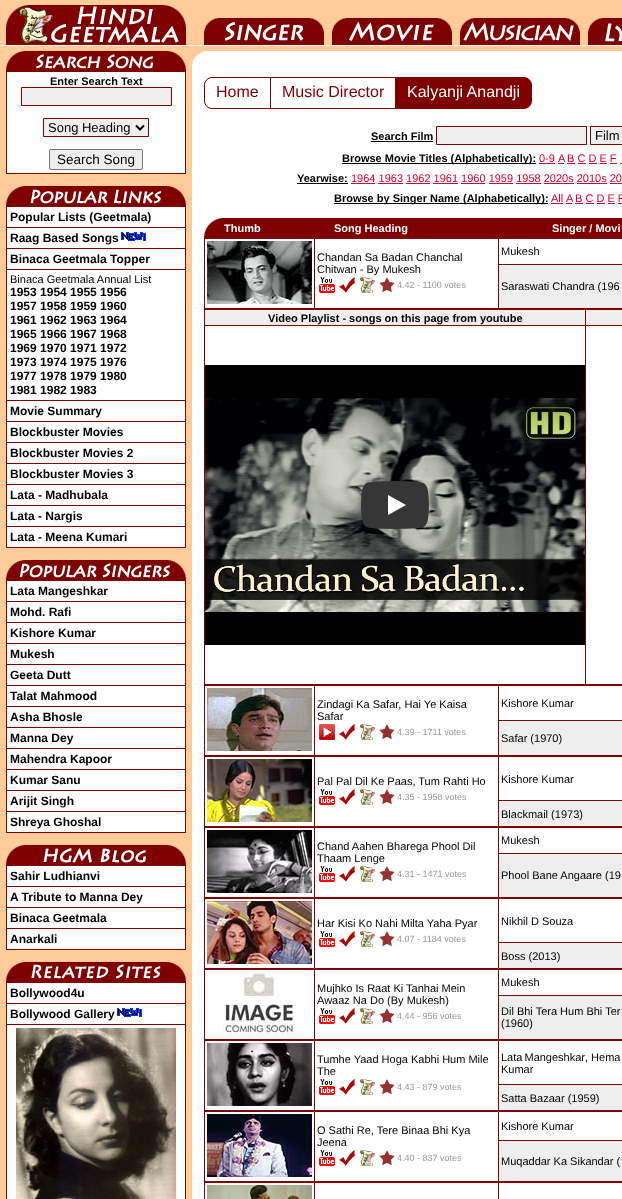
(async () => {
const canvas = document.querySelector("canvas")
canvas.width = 622
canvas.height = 1199
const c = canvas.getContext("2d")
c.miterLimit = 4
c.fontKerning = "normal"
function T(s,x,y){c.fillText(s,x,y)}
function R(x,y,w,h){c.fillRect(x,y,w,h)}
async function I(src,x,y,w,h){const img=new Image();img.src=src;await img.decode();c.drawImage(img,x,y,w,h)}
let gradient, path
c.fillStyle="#fff"
R(0,0,622,1199)
await I("1.png",0,0,622,45)
c.fillStyle="#fc9"
R(0,46,622,5)
R(0,51,6,1148)
R(6,174,180,788)
await I("2.png",6,51,180,20)
c.fillStyle="#7f0000"
R(6,71,180,1)
R(185,71,1,103)
R(6,173,180,1)
R(6,71,1,103)
c.font="bold 11px Liberation Sans"
c.fillStyle="#000"
T("Enter Search Text",50,85)
c.fillStyle="#eee"
c.beginPath()
c.rect(21.5,87.5,150,18)
c.fill()
c.strokeStyle="#7f0000"
c.stroke()
c.beginPath()
c.rect(43.5,118.5,105,18)
c.fill()
c.stroke()
path = new Path2D("M136 125.5l4 4l4-4")
c.strokeStyle="#000"
c.lineWidth=2
c.stroke(path)
c.font="13px Liberation Sans"
c.fillStyle="#000"
T("Song Heading",48,132)
c.fillStyle="#efefef"
c.beginPath()
c.roundRect(49.5,149.5,93,20,1.5)
c.fill()
c.strokeStyle="#767676"
c.lineWidth=1
c.stroke()
c.font="13.5px Liberation Sans"
c.fillStyle="#000"
T("Search Song",57,164)
await I("3.png",6,186,180,20)
c.fillStyle="#fff"
R(7,207,178,340)
c.fillStyle="#7f0000"
R(6,206,180,1)
R(185,206,1,342)
R(6,547,180,1)
R(6,206,1,342)
c.font="bold 12px Liberation Sans"
c.fillStyle="#000"
T("Popular Lists (Geetmala)",10,221)
c.fillStyle="#7f0000"
R(6,227,180,1)
c.fillStyle="#000"
T("Raag Based Songs",10,242)
await I("4.png",121,232,25,9)
c.fillStyle="#7f0000"
R(6,248,180,1)
c.fillStyle="#000"
T("Binaca Geetmala Topper",10,263)
c.fillStyle="#7f0000"
R(6,269,180,1)
c.font="11px Liberation Sans"
c.fillStyle="#000"
T("Binaca Geetmala Annual List",10,283)
c.font="bold 12px Liberation Sans"
T("1953 1954 1955 1956",10,296)
T("1957 1958 1959 1960",10,310)
T("1961 1962 1963 1964",10,324)
T("1965 1966 1967 1968",10,338)
T("1969 1970 1971 1972",10,352)
T("1973 1974 1975 1976",10,366)
T("1977 1978 1979 1980",10,380)
T("1981 1982 1983",10,394)
c.fillStyle="#7f0000"
R(6,400,180,1)
c.fillStyle="#000"
T("Movie Summary",10,415)
c.fillStyle="#7f0000"
R(6,421,180,1)
c.fillStyle="#000"
T("Blockbuster Movies",10,436)
c.fillStyle="#7f0000"
R(6,442,180,1)
c.fillStyle="#000"
T("Blockbuster Movies 2",10,457)
c.fillStyle="#7f0000"
R(6,463,180,1)
c.fillStyle="#000"
T("Blockbuster Movies 3",10,478)
c.fillStyle="#7f0000"
R(6,484,180,1)
c.fillStyle="#000"
T("Lata - Madhubala",10,499)
c.fillStyle="#7f0000"
R(6,505,180,1)
c.fillStyle="#000"
T("Lata - Nargis",10,520)
c.fillStyle="#7f0000"
R(6,526,180,1)
c.fillStyle="#000"
T("Lata - Meena Kumari",10,541)
await I("5.png",6,560,180,20)
c.fillStyle="#fff"
R(7,581,178,251)
c.fillStyle="#7f0000"
R(6,580,180,1)
R(185,580,1,253)
R(6,832,180,1)
R(6,580,1,253)
c.fillStyle="#000"
T("Lata Mangeshkar",10,595)
c.fillStyle="#7f0000"
R(6,601,180,1)
c.fillStyle="#000"
T("Mohd. Rafi",10,616)
c.fillStyle="#7f0000"
R(6,622,180,1)
c.fillStyle="#000"
T("Kishore Kumar",10,637)
c.fillStyle="#7f0000"
R(6,643,180,1)
c.fillStyle="#000"
T("Mukesh",10,658)
c.fillStyle="#7f0000"
R(6,664,180,1)
c.fillStyle="#000"
T("Geeta Dutt",10,679)
c.fillStyle="#7f0000"
R(6,685,180,1)
c.fillStyle="#000"
T("Talat Mahmood",10,700)
c.fillStyle="#7f0000"
R(6,706,180,1)
c.fillStyle="#000"
T("Asha Bhosle",10,721)
c.fillStyle="#7f0000"
R(6,727,180,1)
c.fillStyle="#000"
T("Manna Dey",10,742)
c.fillStyle="#7f0000"
R(6,748,180,1)
c.fillStyle="#000"
T("Mahendra Kapoor",10,763)
c.fillStyle="#7f0000"
R(6,769,180,1)
c.fillStyle="#000"
T("Kumar Sanu",10,784)
c.fillStyle="#7f0000"
R(6,790,180,1)
c.fillStyle="#000"
T("Arijit Singh",10,805)
c.fillStyle="#7f0000"
R(6,811,180,1)
c.fillStyle="#000"
T("Shreya Ghoshal",10,826)
await I("6.png",6,845,180,20)
c.fillStyle="#fff"
R(7,866,178,83)
c.fillStyle="#7f0000"
R(6,865,180,1)
R(185,865,1,85)
R(6,949,180,1)
R(6,865,1,85)
c.fillStyle="#000"
T("Sahir Ludhianvi",10,880)
c.fillStyle="#7f0000"
R(6,886,180,1)
c.fillStyle="#000"
T("A Tribute to Manna Dey",10,901)
c.fillStyle="#7f0000"
R(6,907,180,1)
c.fillStyle="#000"
T("Binaca Geetmala",10,922)
c.fillStyle="#7f0000"
R(6,928,180,1)
c.fillStyle="#000"
T("Anarkali",10,943)
await I("7.png",6,962,180,20)
c.fillStyle="#7f0000"
R(6,982,180,1)
R(185,982,1,217)
R(6,982,1,217)
c.fillStyle="#000"
T("Bollywood4u",10,997)
c.fillStyle="#7f0000"
R(6,1003,180,1)
c.fillStyle="#000"
T("Bollywood Gallery",10,1018)
await I("4.png",117,1008,25,9)
c.fillStyle="#7f0000"
R(6,1024,180,1)
await I("8.png",16,1028,160,171)
c.fillStyle="#fc9"
R(186,51,6,1148)
await I("9.png",192,51,15,14)
c.beginPath()
c.roundRect(204.5,77.5,66,31,[7.5,0,0,7.5])
c.strokeStyle="#7f0000"
c.stroke()
c.font="16px Liberation Sans"
c.fillStyle="#7f0000"
T("Home",216,97)
c.strokeRect(270.5,77.5,125,31)
T("Music Director",282,97)
c.beginPath()
c.roundRect(395.5,77.5,136,31,[0,7.5,7.5,0])
c.fill()
c.stroke()
c.fillStyle="#fff"
T("Kalyanji Anandji",407,97)
c.font="bold 11px Liberation Sans"
c.fillStyle="#000"
T("Search Film",371,140)
R(371,141,62,1)
c.fillStyle="#eee"
c.beginPath()
c.rect(436.5,126.5,150,18)
c.fill()
c.stroke()
c.beginPath()
c.rect(590.5,126.5,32,18)
c.fill()
c.stroke()
c.font="13px Liberation Sans"
c.fillStyle="#000"
T("Film",595,140)
R(342,163,194,1)
c.font="bold 11px Liberation Sans"
T("Browse Movie Titles (Alphabetically):",342,162)
c.font="11px Liberation Sans"
c.fillStyle="#c03"
T("0-9",539,162)
R(539,163,16,1)
T("A",558,162)
R(558,163,6,1)
T("B C D E F",567,162)
R(567,163,8,1)
R(578,163,8,1)
R(589,163,8,1)
R(600,163,7,1)
R(610,163,7,1)
R(620,163,2,1)
c.font="bold 11px Liberation Sans"
c.fillStyle="#000"
T("Yearwise:",297,182)
R(297,183,51,1)
c.font="11px Liberation Sans"
c.fillStyle="#c03"
T("1964 1963 1962 1961 1960 1959 1958 2020s 2010s 20",351,182)
R(351,183,24,1)
R(378,183,25,1)
R(406,183,24,1)
R(433,183,25,1)
R(461,183,24,1)
R(489,183,24,1)
R(516,183,25,1)
R(544,183,30,1)
R(577,183,30,1)
R(610,183,12,1)
c.fillStyle="#000"
R(334,203,214,1)
c.font="bold 11px Liberation Sans"
T("Browse by Singer Name (Alphabetically):",334,202)
c.font="11px Liberation Sans"
c.fillStyle="#c03"
T("All",551,202)
R(551,203,12,1)
T("A",566,202)
R(566,203,6,1)
T("B C D E F",575,202)
R(575,203,8,1)
R(586,203,8,1)
R(597,203,8,1)
R(608,203,7,1)
R(618,203,4,1)
await I("10.png",204,218,20,20)
c.fillStyle="#7f0000"
R(224,218,398,20)
c.font="bold 11px Liberation Sans"
c.fillStyle="#fff"
T("Thumb",224,232)
T("Song Heading",334,232)
T("Singer / Movi",552,232)
c.fillStyle="#7f0000"
R(204,238,418,1)
R(204,308,418,2)
R(204,238,1,71)
await I("11.png",207,241,105,63)
c.font="11px Liberation Sans"
c.fillStyle="#000"
T("Mukesh",501,255)
c.fillStyle="#7f0000"
R(314,238,1,71)
c.fillStyle="#000"
T("Chandan Sa Badan Chanchal",317,261)
T("Chitwan - By Mukesh",317,273)
await I("12.png",319,277,16,16)
await I("13.png",339,277,16,16)
await I("14.png",360,277,15,16)
await I("15.png",379,277,16,16)
c.font="9px Liberation Sans"
c.fillStyle="#999"
T("4.42 - 1100 votes",397,288)
c.fillStyle="#eee"
R(499,265,123,43)
c.fillStyle="#7f0000"
R(498,264,124,1)
R(498,238,1,71)
c.font="11px Liberation Sans"
c.fillStyle="#000"
T("Saraswati Chandra (196",501,290)
c.fillStyle="#7f0000"
R(204,684,418,2)
R(204,309,1,376)
c.fillStyle="#eee"
R(205,310,380,15)
c.font="bold 11px Liberation Sans"
c.fillStyle="#000"
T("Video Playlist - songs on this page from youtube",268,322)
c.fillStyle="#eee"
R(586,310,36,15)
c.fillStyle="#7f0000"
R(585,325,37,1)
R(585,325,1,360)
R(204,325,382,1)
R(585,309,1,17)
c.fillStyle="#000"
R(205,365,380,280)
await I("16.png",205,398,380,214)
gradient = c.createLinearGradient(395,365,395,464)
gradient.addColorStop(0,"#000000ab")
gradient.addColorStop(.14,"#0000008a")
gradient.addColorStop(.54,"#00000026")
gradient.addColorStop(.72,"#0000000d")
gradient.addColorStop(.94,"#00000000")
c.fillStyle = gradient
R(205,398,380,51)
await I("17.png",361,481,68,48)
c.fillStyle="#7f0000"
R(204,755,418,2)
R(204,685,1,71)
await I("18.png",207,688,105,63)
R(314,685,1,71)
c.font="11px Liberation Sans"
c.fillStyle="#000"
T("Zindagi Ka Safar, Hai Ye Kaisa",317,708)
T("Safar",317,720)
await I("19.png",319,724,16,16)
await I("13.png",339,724,16,16)
await I("14.png",360,724,15,16)
await I("15.png",379,724,16,16)
c.font="9px Liberation Sans"
c.fillStyle="#999"
T("4.39 - 1711 votes",397,735)
c.font="11px Liberation Sans"
c.fillStyle="#000"
T("Kishore Kumar",501,707)
c.fillStyle="#eee"
R(499,721,123,34)
c.fillStyle="#7f0000"
R(498,720,124,1)
R(498,685,1,71)
c.fillStyle="#000"
T("Safar (1970)",501,742)
c.fillStyle="#7f0000"
R(204,826,418,2)
R(204,756,1,71)
await I("20.png",207,759,105,63)
R(314,756,1,71)
c.fillStyle="#000"
T("Pal Pal Dil Ke Paas, Tum Rahti Ho",317,785)
await I("12.png",319,789,16,16)
await I("13.png",339,789,16,16)
await I("14.png",360,789,15,16)
await I("15.png",379,789,16,16)
c.font="9px Liberation Sans"
c.fillStyle="#999"
T("4.35 - 1958 votes",397,800)
c.font="11px Liberation Sans"
c.fillStyle="#000"
T("Kishore Kumar",501,783)
c.fillStyle="#eee"
R(499,801,123,25)
c.fillStyle="#7f0000"
R(498,800,124,1)
R(498,756,1,71)
c.fillStyle="#000"
T("Blackmail (1973)",501,818)
c.fillStyle="#7f0000"
R(204,897,418,2)
R(204,827,1,71)
await I("21.png",207,830,105,63)
c.fillStyle="#000"
T("Mukesh",501,844)
c.fillStyle="#7f0000"
R(314,827,1,71)
c.fillStyle="#000"
T("Chand Aahen Bharega Phool Dil",317,850)
T("Thaam Lenge",317,862)
await I("12.png",319,866,16,16)
await I("13.png",339,866,16,16)
await I("14.png",360,866,15,16)
await I("15.png",379,866,16,16)
c.font="9px Liberation Sans"
c.fillStyle="#999"
T("4.31 - 1471 votes",397,877)
c.fillStyle="#eee"
R(499,854,123,43)
c.fillStyle="#7f0000"
R(498,853,124,1)
R(498,827,1,71)
c.font="11px Liberation Sans"
c.fillStyle="#000"
T("Phool Bane Angaare (19",501,879)
c.fillStyle="#7f0000"
R(204,968,418,2)
R(204,898,1,71)
await I("22.png",207,901,105,63)
R(314,898,1,71)
c.fillStyle="#000"
T("Har Kisi Ko Nahi Milta Yaha Pyar",317,927)
await I("12.png",319,931,16,16)
await I("13.png",339,931,16,16)
await I("14.png",360,931,15,16)
await I("15.png",379,931,16,16)
c.font="9px Liberation Sans"
c.fillStyle="#999"
T("4.07 - 1184 votes",397,942)
c.font="11px Liberation Sans"
c.fillStyle="#000"
T("Nikhil D Souza",501,925)
c.fillStyle="#eee"
R(499,943,123,25)
c.fillStyle="#7f0000"
R(498,942,124,1)
R(498,898,1,71)
c.fillStyle="#000"
T("Boss (2013)",501,960)
c.fillStyle="#7f0000"
R(204,1039,418,2)
R(204,969,1,71)
await I("23.png",223,972,72,63)
c.fillStyle="#000"
T("Mukesh",501,986)
c.fillStyle="#7f0000"
R(314,969,1,71)
c.fillStyle="#000"
T("Mujhko Is Raat Ki Tanhai Mein",317,992)
T("Awaaz Na Do (By Mukesh)",317,1004)
await I("12.png",319,1008,16,16)
await I("13.png",339,1008,16,16)
await I("14.png",360,1008,15,16)
await I("15.png",379,1008,16,16)
c.font="9px Liberation Sans"
c.fillStyle="#999"
T("4.44 - 956 votes",397,1019)
c.fillStyle="#eee"
R(499,996,123,43)
c.fillStyle="#7f0000"
R(498,995,124,1)
R(498,969,1,71)
c.font="11px Liberation Sans"
c.fillStyle="#000"
T("Dil Bhi Tera Hum Bhi Ter",501,1015)
T("(1960)",501,1027)
c.fillStyle="#7f0000"
R(204,1110,418,2)
R(204,1040,1,71)
await I("24.png",207,1043,105,63)
R(314,1040,1,71)
c.fillStyle="#000"
T("Tumhe Yaad Hoga Kabhi Hum Mile",317,1063)
T("The",317,1075)
await I("12.png",319,1079,16,16)
await I("13.png",339,1079,16,16)
await I("14.png",360,1079,15,16)
await I("15.png",379,1079,16,16)
c.font="9px Liberation Sans"
c.fillStyle="#999"
T("4.43 - 879 votes",397,1090)
c.wordSpacing="-1px"
c.font="11px Liberation Sans"
c.fillStyle="#000"
T("Lata Mangeshkar",501,1061)
c.wordSpacing="0px"
T(", Hema",585,1061)
T("Kumar",501,1073)
c.fillStyle="#eee"
R(499,1085,123,25)
c.fillStyle="#7f0000"
R(498,1084,124,1)
R(498,1040,1,71)
c.fillStyle="#000"
T("Satta Bazaar (1959)",501,1102)
c.fillStyle="#7f0000"
R(204,1181,418,2)
R(204,1111,1,88)
await I("25.png",207,1114,105,63)
R(314,1111,1,88)
c.fillStyle="#000"
T("O Sathi Re, Tere Binaa Bhi Kya",317,1134)
T("Jeena",317,1146)
await I("12.png",319,1150,16,16)
await I("13.png",339,1150,16,16)
await I("14.png",360,1150,15,16)
await I("15.png",379,1150,16,16)
c.font="9px Liberation Sans"
c.fillStyle="#999"
T("4.40 - 837 votes",397,1161)
c.font="11px Liberation Sans"
c.fillStyle="#000"
T("Kishore Kumar",501,1130)
c.fillStyle="#eee"
R(499,1141,123,40)
c.fillStyle="#7f0000"
R(498,1140,124,1)
R(498,1111,1,88)
c.fillStyle="#000"
T("Muqaddar Ka Sikandar (",501,1165)
await I("26.png",207,1185,105,14)
})()
